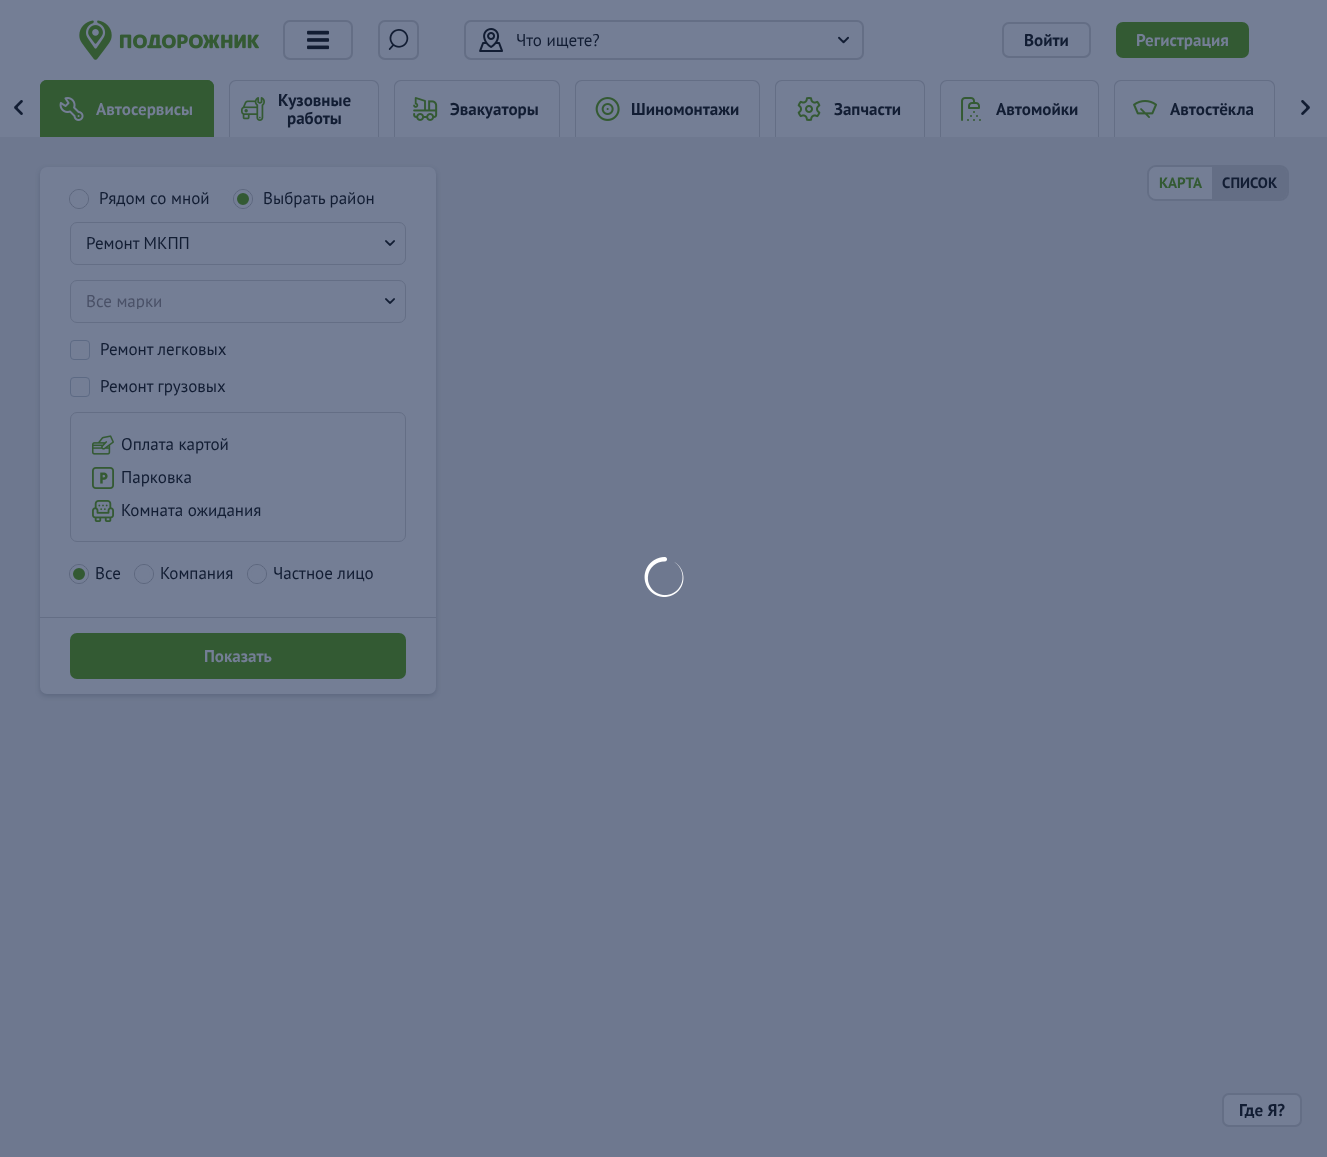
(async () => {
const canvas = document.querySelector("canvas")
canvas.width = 1327
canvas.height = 1157
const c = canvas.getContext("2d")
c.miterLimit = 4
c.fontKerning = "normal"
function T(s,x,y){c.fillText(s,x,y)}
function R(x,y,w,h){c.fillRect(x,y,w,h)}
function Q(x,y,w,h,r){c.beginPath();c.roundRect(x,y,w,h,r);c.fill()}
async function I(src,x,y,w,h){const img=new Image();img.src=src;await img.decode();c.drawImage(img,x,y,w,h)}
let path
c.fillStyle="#6e788f"
R(0,0,1327,1157)
c.fillStyle="#747e95"
R(0,0,1327,137)
await I("1.png",79,20,180,40)
c.beginPath()
c.roundRect(284,21,68,38,6)
c.strokeStyle="#646e85"
c.lineWidth=2
c.stroke()
await I("2.png",307,30,23,20)
c.beginPath()
c.roundRect(379,21,39,38,6)
c.stroke()
await I("3.png",388,29,21,21)
c.beginPath()
c.roundRect(465,21,398,38,6)
c.stroke()
await I("4.png",479,28,24,24)
c.font="17px PT Sans"
c.fillStyle="#121d33"
T("Что ищете?",516,46)
await I("5.png",838,36,11,8)
c.beginPath()
c.roundRect(1003,23,87,34,6)
c.stroke()
c.font="bold 17px PT Sans"
T("Войти",1024,46)
c.fillStyle="#335a33"
Q(1116,22,133,36,7)
c.fillStyle="#747e95"
T("Регистрация",1136,46)
await I("6.png",14,100,9,15)
c.fillStyle="#335a33"
c.beginPath()
c.roundRect(40,80,174,57,[7,7,0,0])
c.fill()
path = new Path2D("M47 80h160c4 0 7 3 7 7v50h-174v-50c0-4 3-7 7-7zm0 1h160c3 0 6 3 6 6v50h-172v-50c0-3 3-6 6-6z")
c.fill(path,"evenodd")
await I("7.png",59,97,25,24)
c.fillStyle="#747e95"
T("Автосервисы",96,115)
c.fillStyle="#646e85"
path = new Path2D("M236 80h136c4 0 7 3 7 7v50h-150v-50c0-4 3-7 7-7zm0 1h136c3 0 6 3 6 6v50h-148v-50c0-3 3-6 6-6z")
c.fill(path,"evenodd")
await I("8.png",241,97,24,24)
c.fillStyle="#121d33"
T("Кузовные",278,106)
T("работы",287,124)
c.fillStyle="#646e85"
path = new Path2D("M401 80h152c4 0 7 3 7 7v50h-166v-50c0-4 3-7 7-7zm0 1h152c3 0 6 3 6 6v50h-164v-50c0-3 3-6 6-6z")
c.fill(path,"evenodd")
await I("9.png",413,97,25,24)
c.fillStyle="#121d33"
T("Эвакуаторы",450,115)
c.fillStyle="#646e85"
path = new Path2D("M582 80h171c4 0 7 3 7 7v50h-185v-50c0-4 3-7 7-7zm0 1h171c3 0 6 3 6 6v50h-183v-50c0-3 3-6 6-6z")
c.fill(path,"evenodd")
await I("10.png",595,97,25,24)
c.fillStyle="#121d33"
T("Шиномонтажи",631,115)
c.fillStyle="#646e85"
path = new Path2D("M782 80h136c4 0 7 3 7 7v50h-150v-50c0-4 3-7 7-7zm0 1h136c3 0 6 3 6 6v50h-148v-50c0-3 3-6 6-6z")
c.fill(path,"evenodd")
await I("11.png",797,97,24,24)
c.fillStyle="#121d33"
T("Запчасти",834,115)
c.fillStyle="#646e85"
path = new Path2D("M947 80h145c4 0 7 3 7 7v50h-159v-50c0-4 3-7 7-7zm0 1h145c3 0 6 3 6 6v50h-157v-50c0-3 3-6 6-6z")
c.fill(path,"evenodd")
await I("12.png",961,97,20,24)
c.fillStyle="#121d33"
T("Автомойки",996,115)
c.fillStyle="#646e85"
path = new Path2D("M1121 80h147c4 0 7 3 7 7v50h-161v-50c0-4 3-7 7-7zm0 1h147c3 0 6 3 6 6v50h-159v-50c0-3 3-6 6-6z")
c.fill(path,"evenodd")
await I("13.png",1133,100,24,18)
c.fillStyle="#121d33"
T("Автостёкла",1170,115)
await I("14.png",1301,100,9,15)
c.beginPath()
c.roundRect(1148,166,140,34,8)
c.stroke()
c.fillStyle="#747e95"
c.beginPath()
c.roundRect(1149,167,63,32,[7,0,0,7])
c.fill()
c.font="bold 15px PT Sans"
c.fillStyle="#335a33"
T("КАРТА",1159,188)
c.fillStyle="#646e85"
c.beginPath()
c.roundRect(1212,167,75,32,[0,7,7,0])
c.fill()
c.fillStyle="#121d33"
T("СПИСОК",1222,188)
c.fillStyle="#12223c33"
c.filter="blur(2.5px)"
c.beginPath()
c.roundRect(40,169,396,527,7)
c.fill()
c.filter="none"
c.fillStyle="#747e95"
Q(40,167,396,527,7)
c.beginPath()
c.arc(79,199,9.5,0,7)
c.strokeStyle="#5c667d"
c.lineWidth=1
c.stroke()
c.beginPath()
c.arc(79,199,7.5,0,7)
c.fill()
c.strokeStyle="#747e95"
c.lineWidth=3
c.stroke()
c.font="17px PT Sans"
c.fillStyle="#121d33"
T("Рядом со мной",99,204)
c.beginPath()
c.arc(243,199,9.5,0,7)
c.strokeStyle="#5c667d"
c.lineWidth=1
c.stroke()
c.fillStyle="#335a33"
c.beginPath()
c.arc(243,199,7.5,0,7)
c.fill()
c.strokeStyle="#747e95"
c.lineWidth=3
c.stroke()
c.fillStyle="#121d33"
T("Выбрать район",263,204)
c.beginPath()
c.roundRect(70.5,222.5,335,42,6.5)
c.strokeStyle="#646e85"
c.lineWidth=1
c.stroke()
T("Ремонт МКПП",86,249)
await I("15.png",385,240,10,6)
c.beginPath()
c.roundRect(70.5,280.5,335,42,6.5)
c.stroke()
c.save()
c.beginPath()
c.rect(86,293,289,16)
c.clip()
c.fillStyle="#4a5167"
T("Все марки",86,307)
c.restore()
await I("15.png",385,298,10,6)
c.beginPath()
c.roundRect(70.5,340.5,19,19,3.5)
c.strokeStyle="#5d6a84"
c.stroke()
T("Ремонт легковых",100,355)
c.beginPath()
c.roundRect(70.5,377.5,19,19,3.5)
c.stroke()
T("Ремонт грузовых",100,392)
c.beginPath()
c.roundRect(70.5,412.5,335,129,6.5)
c.strokeStyle="#646e85"
c.stroke()
await I("16.png",92,435,22,20)
T("Оплата картой",121,450)
await I("17.png",92,467,22,22)
T("Парковка",121,483)
await I("18.png",92,500,22,22)
T("Комната ожидания",121,516)
c.beginPath()
c.arc(79,574,9.5,0,7)
c.strokeStyle="#5c667d"
c.stroke()
c.fillStyle="#335a33"
c.beginPath()
c.arc(79,574,7.5,0,7)
c.fill()
c.strokeStyle="#747e95"
c.lineWidth=3
c.stroke()
c.fillStyle="#121d33"
T("Все",95,579)
c.beginPath()
c.arc(144,574,9.5,0,7)
c.strokeStyle="#5c667d"
c.lineWidth=1
c.stroke()
c.fillStyle="#747e95"
c.beginPath()
c.arc(144,574,7.5,0,7)
c.fill()
c.strokeStyle="#747e95"
c.lineWidth=3
c.stroke()
c.fillStyle="#121d33"
T("Компания",160,579)
c.beginPath()
c.arc(257,574,9.5,0,7)
c.strokeStyle="#5c667d"
c.lineWidth=1
c.stroke()
c.fillStyle="#747e95"
c.beginPath()
c.arc(257,574,7.5,0,7)
c.fill()
c.strokeStyle="#747e95"
c.lineWidth=3
c.stroke()
c.fillStyle="#121d33"
T("Частное лицо",273,579)
c.fillStyle="#646e85"
R(40,617,396,1)
c.fillStyle="#335a33"
Q(70,633,336,46,7)
c.font="bold 17px PT Sans"
c.fillStyle="#747e95"
T("Показать",204,662)
c.beginPath()
c.roundRect(1223,1094,78,32,6)
c.fill()
c.strokeStyle="#646e85"
c.lineWidth=2
c.stroke()
c.fillStyle="#121d33"
T("Где Я?",1239,1116)
await I("19.png",644,557,40,40)
})()
